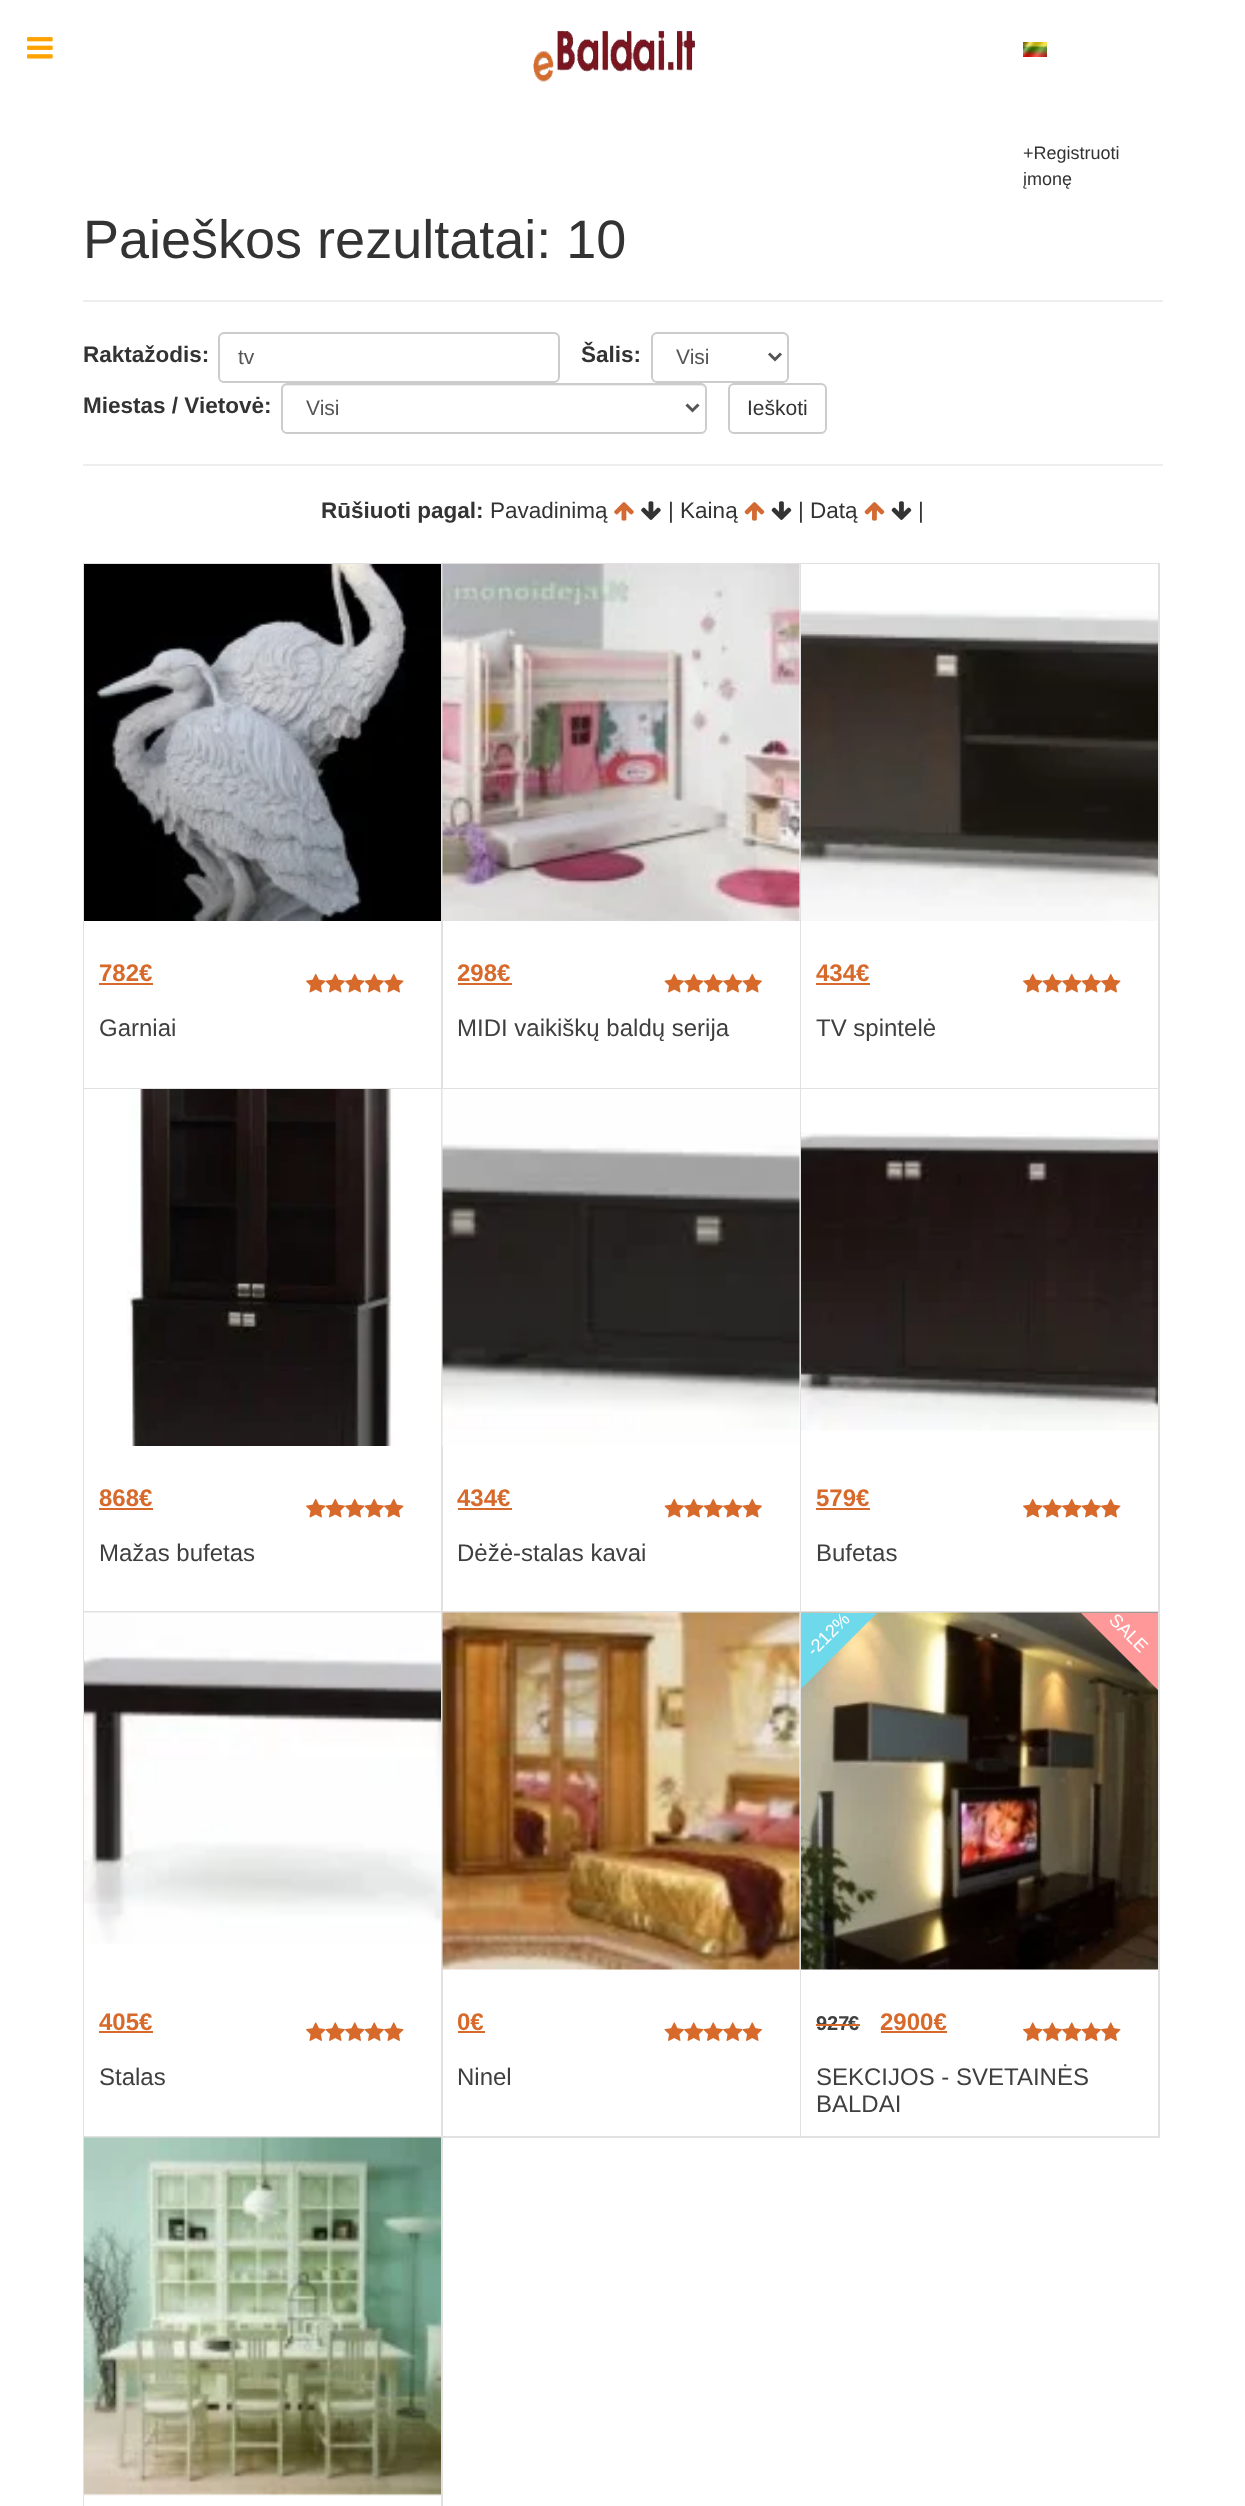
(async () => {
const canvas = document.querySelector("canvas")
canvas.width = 1245
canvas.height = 2506
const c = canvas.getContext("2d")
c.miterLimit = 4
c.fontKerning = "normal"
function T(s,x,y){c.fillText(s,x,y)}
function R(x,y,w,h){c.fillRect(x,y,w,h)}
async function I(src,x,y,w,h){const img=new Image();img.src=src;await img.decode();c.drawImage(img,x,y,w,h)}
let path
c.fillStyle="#fff"
R(0,0,1245,2506)
await I("1.png",27,37,26,22)
await I("2.png",533,30,163,52)
await I("3.png",1023,42,24,15)
c.font="18px Arimo"
c.fillStyle="#333"
T("+Registruoti",1023,159)
T("įmonę",1023,185)
c.font="54px Arimo"
T("Paieškos rezultatai: 10",83,258)
c.fillStyle="#eee"
R(83,300,1080,2)
c.font="bold 22.5px Arimo"
c.fillStyle="#333"
T("Raktažodis:",83,362)
c.fillStyle="#ececec"
path = new Path2D("M224 334h330c2 0 4 3 4 5c0-3-2-6-5-6h-329c-3 0-5 3-5 6c0-2 2-5 5-5z")
c.fill(path)
c.beginPath()
c.roundRect(219,333,340,49,5)
c.strokeStyle="#ccc"
c.lineWidth=2
c.stroke()
c.font="21px Arimo"
c.fillStyle="#555"
T("tv",238,364)
c.font="bold 22.5px Arimo"
c.fillStyle="#333"
T("Šalis:",581,362)
c.fillStyle="#ececec"
path = new Path2D("M657 334h126c2 0 5 3 5 5v-1c0-3-2-5-5-5h-125c-2 0-4 1-5 3c1-1 3-2 4-2z")
c.fill(path)
c.beginPath()
c.roundRect(652,333,136,49,5)
c.stroke()
path = new Path2D("M769 353.5l6 6l6-6")
c.strokeStyle="#555"
c.lineWidth=3
c.stroke(path)
c.font="21px Arimo"
c.fillStyle="#555"
T("Visi",676,364)
c.font="bold 22.5px Arimo"
c.fillStyle="#333"
T("Miestas / Vietovė:",83,413)
c.fillStyle="#ececec"
path = new Path2D("M286 386h414c3 0 5 2 5 4c0-3-2-6-5-6h-413c-3 0-5 3-5 6c0-2 2-4 4-4z")
c.fill(path)
c.beginPath()
c.roundRect(282,384,424,49,5)
c.strokeStyle="#ccc"
c.lineWidth=2
c.stroke()
path = new Path2D("M686.5 404.5l6 6l6-6")
c.strokeStyle="#555"
c.lineWidth=3
c.stroke(path)
c.font="21px Arimo"
c.fillStyle="#555"
T("Visi",306,415)
c.beginPath()
c.roundRect(729,384,97,49,5)
c.strokeStyle="#ccc"
c.lineWidth=2
c.stroke()
c.fillStyle="#333"
T("Ieškoti",747,415)
c.fillStyle="#eee"
R(83,464,1080,2)
c.font="bold 22.5px Arimo"
c.fillStyle="#333"
T("Rūšiuoti pagal:",321,518)
c.font="22.5px Arimo"
T("Pavadinimą",490,518)
await I("4.png",614,502,20,19)
await I("5.png",641,501,20,19)
T("| Kainą",668,518)
await I("6.png",744,502,21,19)
await I("7.png",771,501,21,19)
T("| Datą",798,518)
await I("6.png",864,502,21,19)
await I("7.png",891,501,21,19)
T("|",918,518)
c.strokeStyle="#e1e1e1"
c.strokeRect(84,564,358,524)
c.fillStyle="#fff"
R(84,921,357,167)
await I("8.png",84,564,357,357)
c.font="bold 24px Arimo"
c.fillStyle="#d76a2b"
T("782€",99,981)
R(99,983,54,2)
await I("9.png",306,973,20,20)
await I("10.png",325,973,20,20)
await I("9.png",345,973,20,20)
await I("10.png",364,973,20,20)
await I("9.png",384,973,20,20)
c.font="24px Arimo"
c.fillStyle="#3f3f3f"
T("Garniai",99,1036)
c.strokeRect(442,564,358,524)
c.fillStyle="#fff"
R(443,564,357,524)
await I("11.png",442,564,358,357)
c.font="bold 24px Arimo"
c.fillStyle="#d76a2b"
T("298€",457,981)
R(458,983,54,2)
await I("12.png",664,973,20,20)
await I("9.png",684,973,20,20)
await I("10.png",703,973,20,20)
await I("9.png",723,973,20,20)
await I("10.png",742,973,20,20)
c.font="24px Arimo"
c.fillStyle="#3f3f3f"
T("MIDI vaikiškų baldų serija",457,1036)
c.strokeRect(801,564,358,524)
c.fillStyle="#fff"
R(801,564,357,524)
await I("13.png",801,610,357,311)
c.font="bold 24px Arimo"
c.fillStyle="#d76a2b"
T("434€",816,981)
R(816,983,54,2)
await I("9.png",1023,973,20,20)
await I("10.png",1042,973,20,20)
await I("9.png",1062,973,20,20)
await I("10.png",1081,973,20,20)
await I("9.png",1101,973,20,20)
c.font="24px Arimo"
c.fillStyle="#3f3f3f"
T("TV spintelė",816,1036)
c.strokeRect(84,1089,358,523)
c.fillStyle="#fff"
R(84,1089,357,522)
await I("14.png",127,1089,266,357)
c.font="bold 24px Arimo"
c.fillStyle="#d76a2b"
T("868€",99,1506)
R(99,1508,54,2)
await I("9.png",306,1498,20,20)
await I("10.png",325,1498,20,20)
await I("9.png",345,1498,20,20)
await I("10.png",364,1498,20,20)
await I("9.png",384,1498,20,20)
c.font="24px Arimo"
c.fillStyle="#3f3f3f"
T("Mažas bufetas",99,1561)
c.strokeRect(442,1089,358,523)
c.fillStyle="#fff"
R(443,1089,357,522)
await I("15.png",442,1089,358,357)
c.font="bold 24px Arimo"
c.fillStyle="#d76a2b"
T("434€",457,1506)
R(458,1508,54,2)
await I("12.png",664,1498,20,20)
await I("9.png",684,1498,20,20)
await I("10.png",703,1498,20,20)
await I("9.png",723,1498,20,20)
await I("10.png",742,1498,20,20)
c.font="24px Arimo"
c.fillStyle="#3f3f3f"
T("Dėžė-stalas kavai",457,1561)
c.strokeRect(801,1089,358,523)
c.fillStyle="#fff"
R(801,1089,357,522)
await I("16.png",801,1132,357,299)
c.font="bold 24px Arimo"
c.fillStyle="#d76a2b"
T("579€",816,1506)
R(816,1508,54,2)
await I("9.png",1023,1498,20,20)
await I("10.png",1042,1498,20,20)
await I("9.png",1062,1498,20,20)
await I("10.png",1081,1498,20,20)
await I("9.png",1101,1498,20,20)
c.font="24px Arimo"
c.fillStyle="#3f3f3f"
T("Bufetas",816,1561)
c.strokeRect(84,1612,358,525)
c.fillStyle="#fff"
R(84,1944,1,192)
await I("17.png",84,1612,357,332)
c.font="bold 24px Arimo"
c.fillStyle="#d76a2b"
T("405€",99,2030)
R(99,2031,54,2)
await I("18.png",306,2022,20,19)
await I("19.png",325,2022,20,19)
await I("18.png",345,2022,20,19)
await I("19.png",364,2022,20,19)
await I("18.png",384,2022,20,19)
c.font="24px Arimo"
c.fillStyle="#3f3f3f"
T("Stalas",99,2085)
c.strokeRect(442,1612,358,525)
c.fillStyle="#fff"
R(799,1613,1,523)
await I("20.png",442,1612,358,358)
c.font="bold 24px Arimo"
c.fillStyle="#d76a2b"
T("0€",457,2030)
R(458,2031,27,2)
await I("21.png",664,2022,20,19)
await I("18.png",684,2022,20,19)
await I("19.png",703,2022,20,19)
await I("18.png",723,2022,20,19)
await I("19.png",742,2022,20,19)
c.font="24px Arimo"
c.fillStyle="#3f3f3f"
T("Ninel",457,2085)
c.strokeRect(801,1612,358,525)
c.fillStyle="#fff"
R(801,1969,1,167)
await I("22.png",801,1612,357,358)
c.save()
c.beginPath()
c.rect(801,1613,357,523)
c.clip()
c.fillStyle="#6fd9ec"
path = new Path2D("M738 1669l124-124l42 41l-124 124z")
c.fill(path)
c.restore()
c.font="18px Arimo"
c.save()
c.translate(814,1657)
c.rotate(-45 * Math.PI / 180)
c.fillText("-212%",0,0)
c.restore()
c.save()
c.beginPath()
c.rect(801,1613,357,523)
c.clip()
c.fillStyle="#f99"
path = new Path2D("M1091 1543l128 128l-40 40l-128-128z")
c.fill(path)
c.restore()
c.save()
c.translate(1108,1621)
c.rotate(45 * Math.PI / 180)
c.fillText("SALE",0,0)
c.restore()
c.font="bold 20px Arimo"
c.fillStyle="#3f3f3f"
T("927",816,2030)
c.fillStyle="#d76a2b"
R(816,2024,33,2)
c.fillStyle="#3f3f3f"
T("€",848,2030)
c.fillStyle="#d76a2b"
R(849,2024,11,2)
c.font="bold 24px Arimo"
T("2900€",880,2030)
R(881,2031,66,2)
await I("18.png",1023,2022,20,19)
await I("19.png",1042,2022,20,19)
await I("18.png",1062,2022,20,19)
await I("19.png",1081,2022,20,19)
await I("18.png",1101,2022,20,19)
c.font="24px Arimo"
c.fillStyle="#3f3f3f"
T("SEKCIJOS - SVETAINĖS",816,2085)
T("BALDAI",816,2112)
c.strokeRect(84,2137,358,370)
c.fillStyle="#fff"
R(84,2493,1,13)
await I("23.png",84,2137,357,359)
})()
